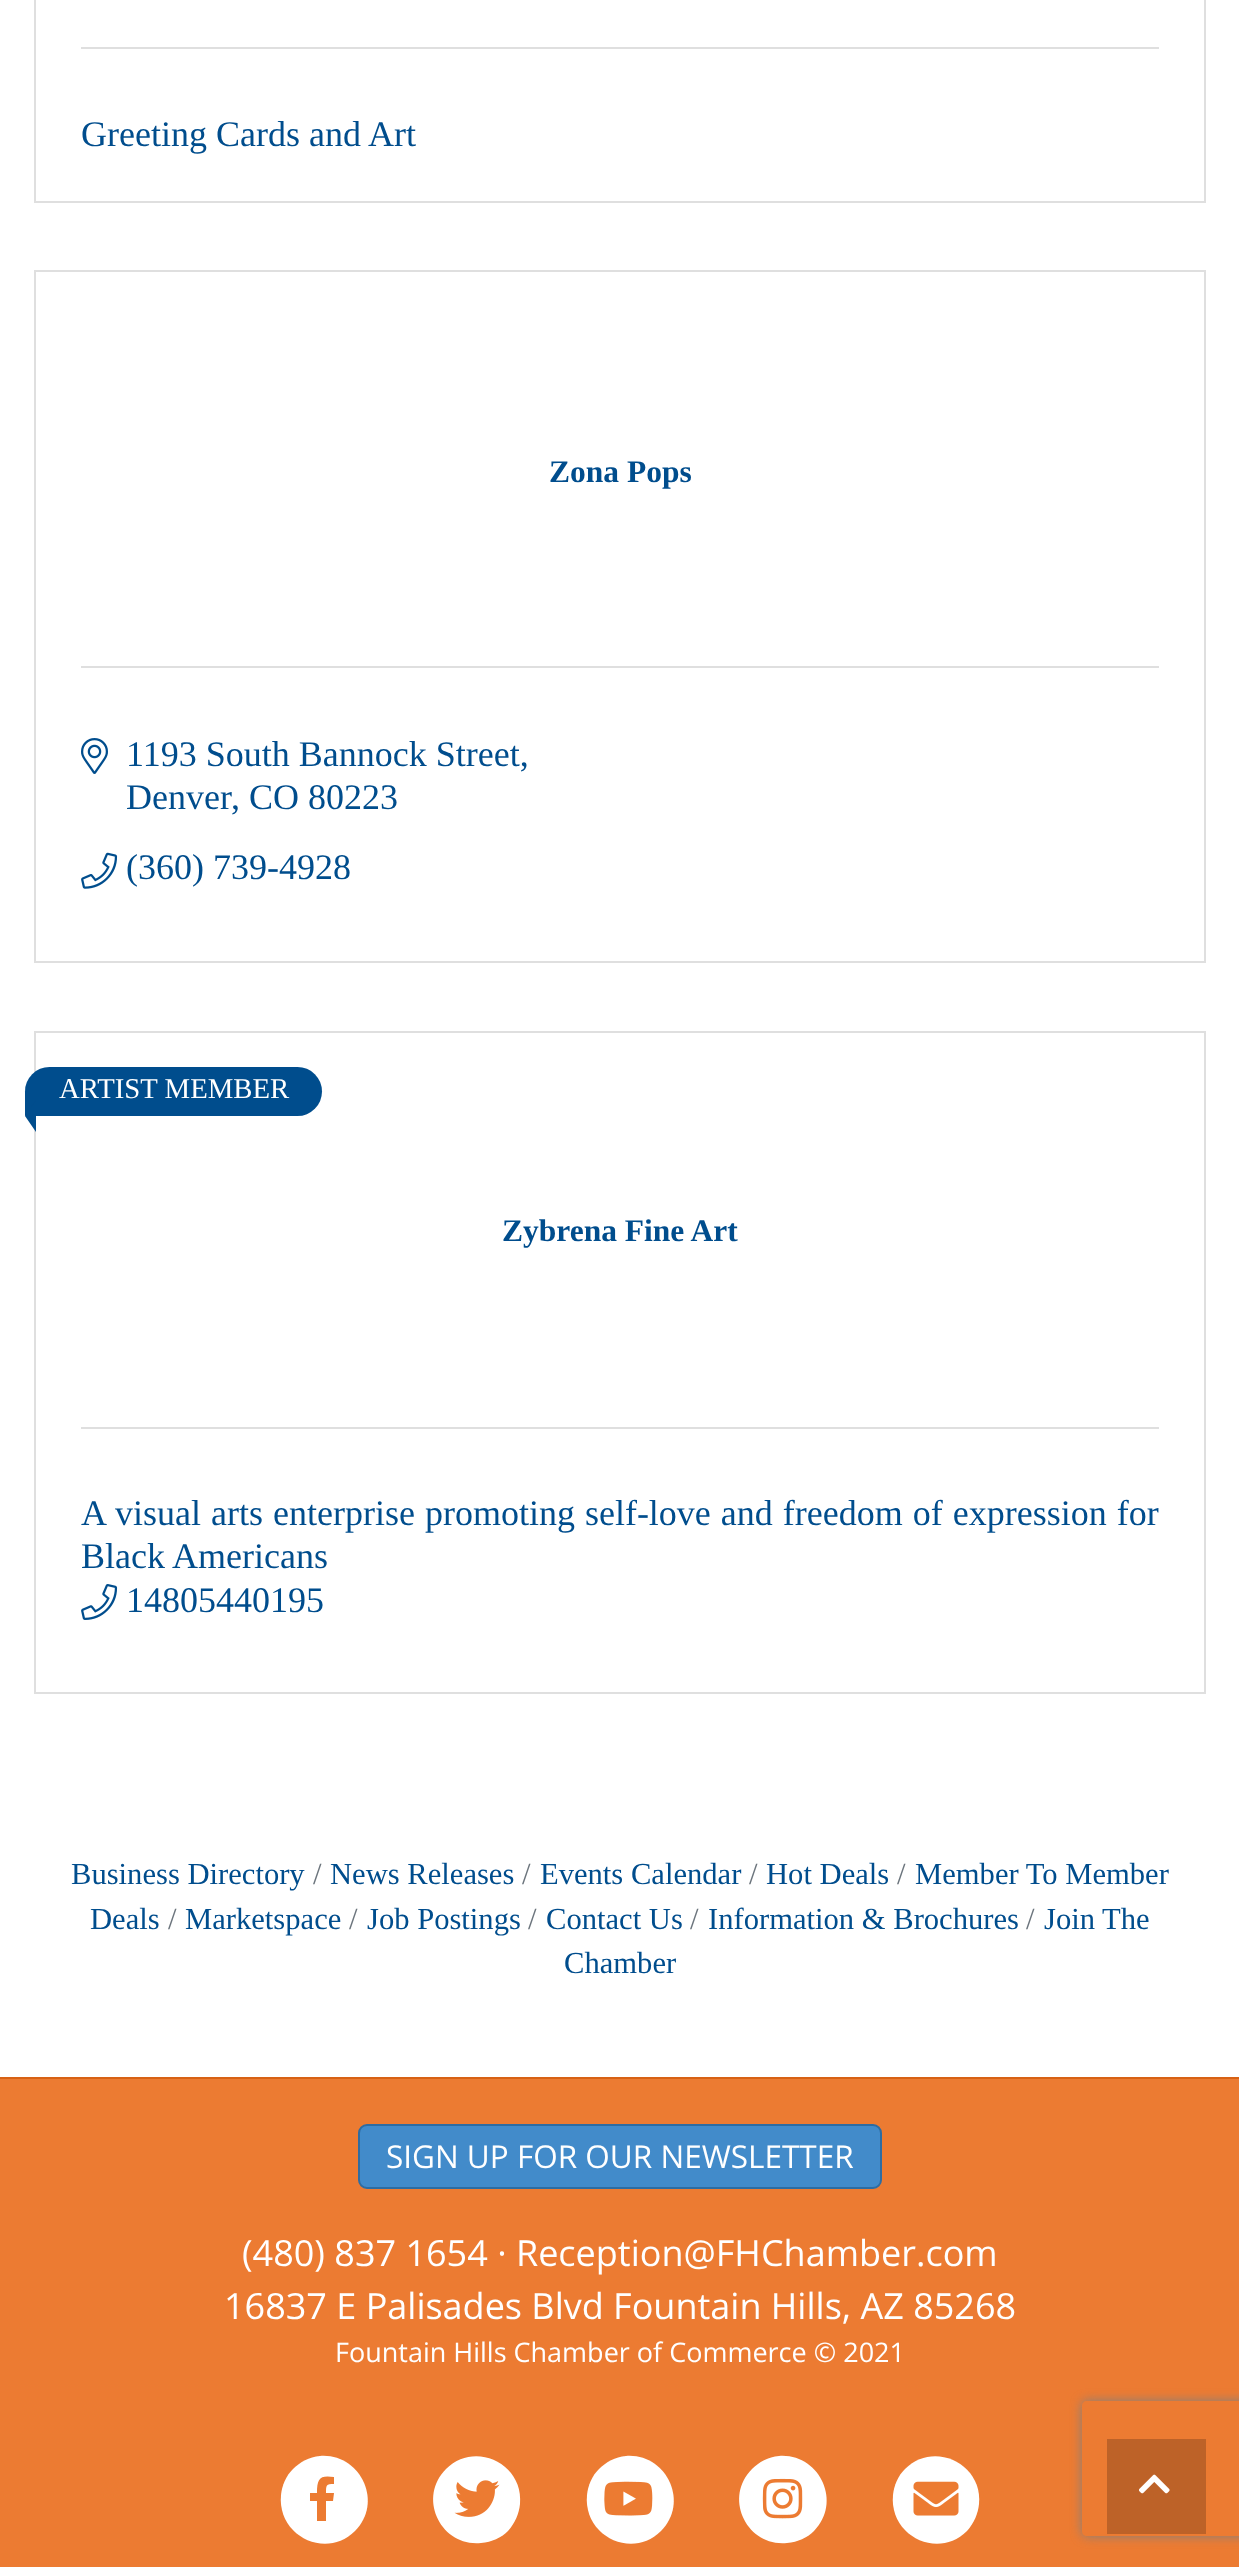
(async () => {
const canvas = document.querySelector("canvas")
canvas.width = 1239
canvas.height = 2567
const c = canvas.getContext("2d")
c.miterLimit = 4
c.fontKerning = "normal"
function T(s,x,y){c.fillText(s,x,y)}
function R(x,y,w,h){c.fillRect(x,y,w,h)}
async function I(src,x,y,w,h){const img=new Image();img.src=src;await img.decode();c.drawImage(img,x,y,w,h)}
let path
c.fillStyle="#fff"
R(0,0,1239,2567)
c.strokeStyle="#dfdfdf"
c.lineWidth=2
c.strokeRect(35,-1,1170,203)
c.fillStyle="#dfdfdf"
R(81,47,1078,2)
c.font="36px Liberation Serif"
c.fillStyle="#004d8d"
T("Greeting Cards and Art",81,146)
c.strokeRect(35,271,1170,691)
c.font="bold 31.5px Liberation Serif"
T("Zona Pops",549,482)
c.fillStyle="#dfdfdf"
R(81,666,1078,2)
await I("1.png",81,738,27,36)
c.font="36px Liberation Serif"
c.fillStyle="#004d8d"
T("1193 South Bannock Street,",126,766)
T("Denver",126,809)
T(", CO 80223",231,809)
await I("2.png",81,852,37,37)
T("(360) 739-4928",126,879)
c.strokeRect(35,1032,1170,661)
c.beginPath()
c.roundRect(25,1067,297,49,[24.5,24.5,24.5,1])
c.fill()
c.font="28.75px Liberation Serif"
c.fillStyle="#fff"
T("ARTIST MEMBER",59,1098)
c.fillStyle="#004d8d"
path = new Path2D("M36 1100v32l-11-16z")
c.fill(path)
c.font="bold 31.5px Liberation Serif"
T("Zybrena Fine Art",502,1241)
c.fillStyle="#dfdfdf"
R(81,1427,1078,2)
c.wordSpacing="1px"
c.font="36px Liberation Serif"
c.fillStyle="#004d8d"
T("A visual arts enterprise promoting self-love and freedom of expression for",81,1525)
c.wordSpacing="0px"
T("Black Americans",81,1568)
await I("3.png",81,1584,37,36)
T("14805440195",126,1612)
c.font="30.6px Liberation Serif"
c.fillStyle="#6c757d"
T("/",897,1884)
c.fillStyle="#004d8d"
T("Member To Member",915,1884)
T("Deals",90,1929)
T("Business Directory",71,1884)
c.fillStyle="#6c757d"
T("/",313,1884)
c.fillStyle="#004d8d"
T("News Releases",330,1884)
c.fillStyle="#6c757d"
T("/",522,1884)
c.fillStyle="#004d8d"
T("Events Calendar",540,1884)
c.fillStyle="#6c757d"
T("/",749,1884)
c.fillStyle="#004d8d"
T("Hot Deals",766,1884)
c.fillStyle="#6c757d"
T("/",168,1929)
c.fillStyle="#004d8d"
T("Marketspace",185,1929)
c.fillStyle="#6c757d"
T("/",349,1929)
c.fillStyle="#004d8d"
T("Job Postings",367,1929)
c.fillStyle="#6c757d"
T("/",1026,1929)
c.fillStyle="#004d8d"
T("Join The",1044,1929)
T("Chamber",564,1973)
c.fillStyle="#6c757d"
T("/",528,1929)
c.fillStyle="#004d8d"
T("Contact Us",546,1929)
c.fillStyle="#6c757d"
T("/",690,1929)
c.fillStyle="#004d8d"
T("Information & Brochures",708,1929)
c.fillStyle="#ec7b32"
R(0,2079,1239,488)
c.fillStyle="#d76114"
R(0,2077,1239,2)
c.fillStyle="#428bca"
c.beginPath()
c.roundRect(359,2125,522,63,8)
c.fill()
c.strokeStyle="#2d6ca2"
c.stroke()
c.font="31.5px Open Sans"
c.fillStyle="#fff"
T("SIGN UP FOR OUR NEWSLETTER",386,2168)
c.font="36px Open Sans"
T("(480) 837 1654 · Reception@FHChamber.com",242,2266)
T("16837 E Palisades Blvd Fountain Hills, AZ 85268",224,2319)
c.font="27px Open Sans"
T("Fountain Hills Chamber of Commerce © 2021",335,2362)
path = new Path2D("M293 2469c7-7 16-12 27-13c40-3 64 46 35 75c-29 29-78 5-74-36c1-10 5-19 12-26z")
c.fill(path)
c.fillStyle="#ec7b32"
path = new Path2D("M333 2501h-7v20h-9v-20h-7v-8h7c0-15 3-18 17-16v7c-8 0-8 1-8 9h8z")
c.fill(path)
c.fillStyle="#fff"
path = new Path2D("M446 2469c29-29 78-5 74 35c-1 10-5 19-12 27c-7 7-16 11-27 12c-40 4-64-45-35-74z")
c.fill(path)
await I("4.png",454,2480,46,37)
path = new Path2D("M599 2469c7-7 16-12 27-13c40-3 64 46 35 75c-29 29-78 5-74-36c1-10 5-19 12-26z")
c.fill(path)
await I("5.png",604,2481,49,35)
path = new Path2D("M752 2469c7-7 16-12 27-13c40-3 64 46 35 75c-7 7-16 11-27 12c-40 4-64-45-35-74z")
c.fill(path)
await I("6.png",762,2478,41,41)
path = new Path2D("M905 2469c29-29 78-5 74 35c-1 10-5 19-12 27c-29 29-78 5-74-36c1-10 5-19 12-26z")
c.fill(path)
await I("7.png",913,2481,46,35)
c.save()
path = new Path2D("M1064 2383h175v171h-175zm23 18h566c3 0 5 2 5 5v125c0 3-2 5-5 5h-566c-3 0-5-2-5-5v-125c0-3 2-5 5-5z")
c.clip(path,"evenodd")
c.fillStyle="#808080"
c.filter="blur(5.5px)"
c.beginPath()
c.roundRect(1082,2401,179,135,5)
c.fill()
c.filter="none"
c.restore()
c.fillStyle="#bd6228"
R(1107,2439,99,95)
await I("8.png",1139,2474,31,20)
})()
